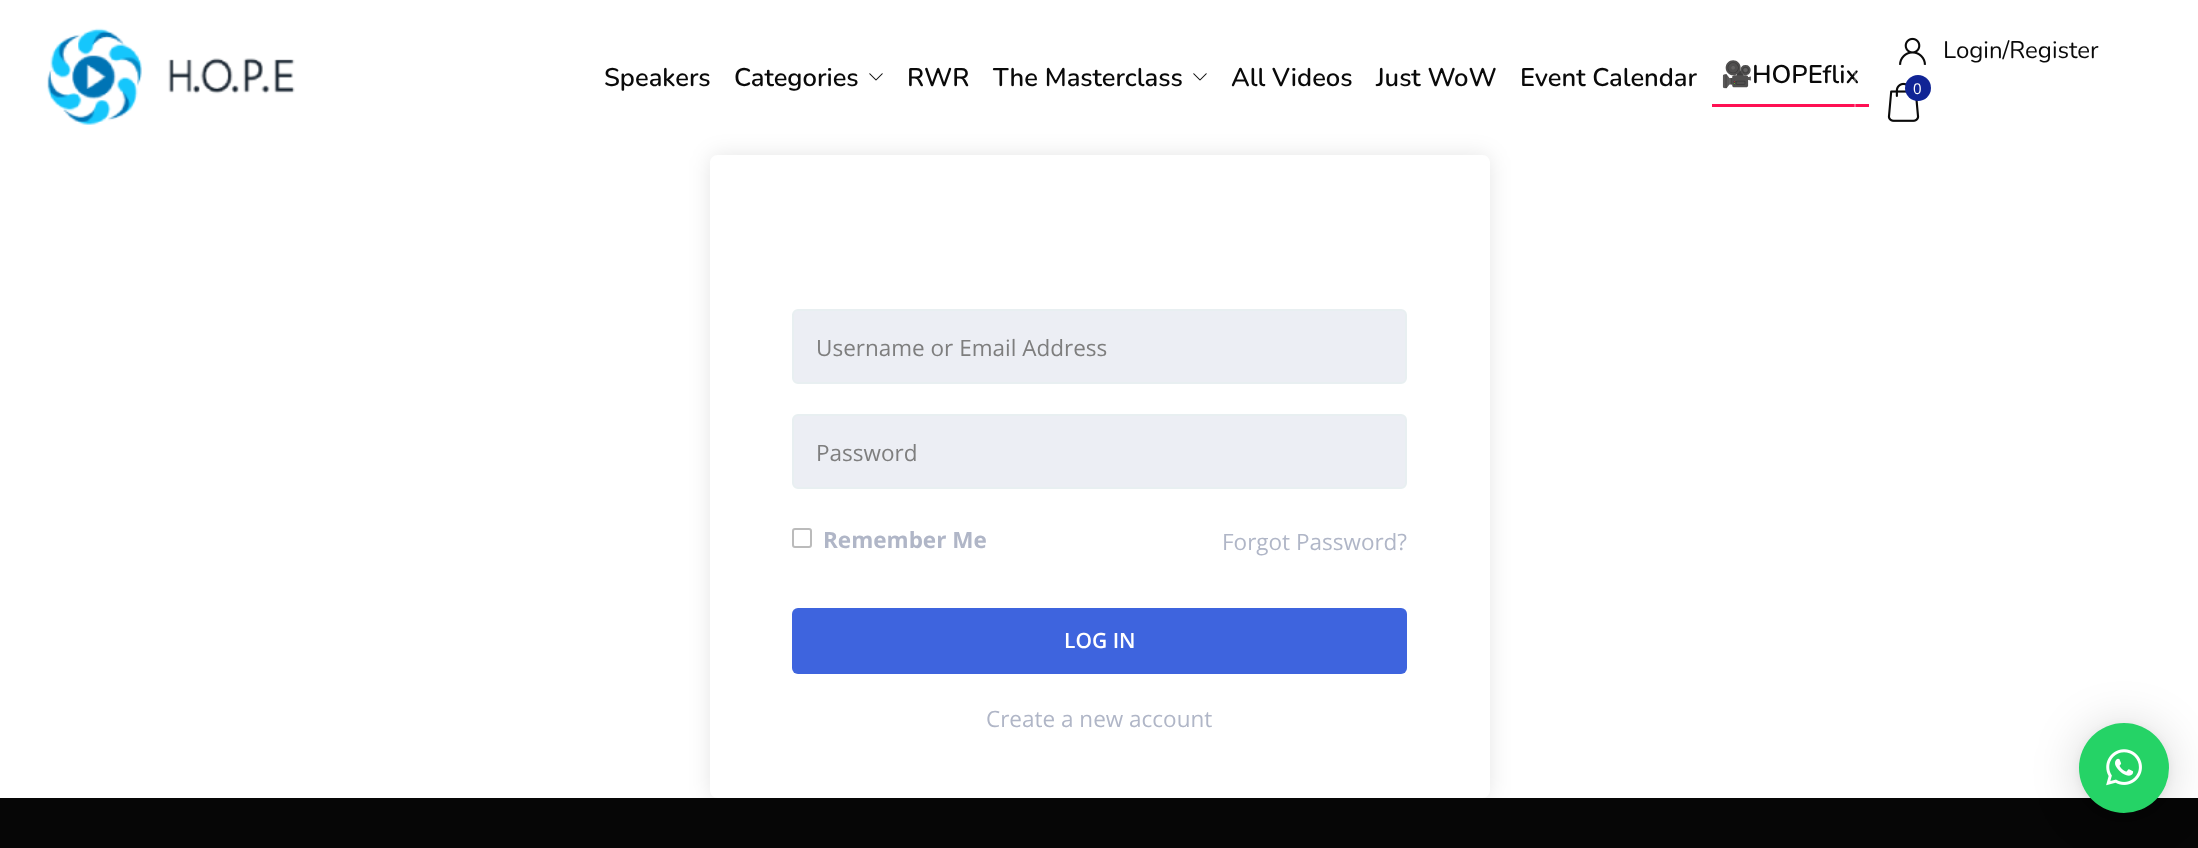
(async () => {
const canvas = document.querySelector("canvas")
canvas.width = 2198
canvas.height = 848
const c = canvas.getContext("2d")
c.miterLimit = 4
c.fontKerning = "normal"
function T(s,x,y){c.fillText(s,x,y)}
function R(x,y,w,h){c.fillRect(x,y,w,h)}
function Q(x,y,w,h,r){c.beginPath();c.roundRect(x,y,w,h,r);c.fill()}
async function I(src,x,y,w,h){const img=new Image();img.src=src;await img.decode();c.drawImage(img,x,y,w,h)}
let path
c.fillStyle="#fff"
R(0,0,2198,848)
await I("1.png",47,28,248,97)
c.font="600 25.5px Nunito"
c.fillStyle="#0a0a0a"
T("Speakers",604,86)
T("Categories",734,86)
await I("2.png",869,73,14,8)
T("RWR",907,86)
T("The Masterclass",993,86)
await I("2.png",1193,73,14,8)
T("All Videos",1231,86)
T("Just WoW",1376,86)
T("Event Calendar",1520,86)
c.fillStyle="#ff1053"
R(1712,104,157,3)
c.font="bold 25.5px Noto Color Emoji"
c.fillStyle="#0a0a0a"
T("🎥",1721,83)
c.font="600 25.5px Nunito"
T("HOPEflix",1752,83)
await I("3.png",1899,37,27,28)
c.font="24px Nunito"
T("Login/Register",1943,58)
c.fillStyle="#ffffff4d"
R(1854,69,2,38)
await I("4.png",1887,82,33,40)
c.fillStyle="#102495"
c.beginPath()
c.arc(1918,88,13,0,7)
c.fill()
c.font="15px Open Sans"
c.fillStyle="#fff"
T("0",1913,94)
c.save()
path = new Path2D("M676 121h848v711h-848zm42 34h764c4.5 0 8 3.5 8 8v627c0 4.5-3.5 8-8 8h-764c-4.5 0-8-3.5-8-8v-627c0-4.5 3.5-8 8-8z")
c.clip(path,"evenodd")
c.fillStyle="#0000001a"
c.filter="blur(11px)"
c.beginPath()
c.roundRect(710,155,780,643,8)
c.fill()
c.filter="none"
c.restore()
c.fillStyle="#eceef4"
c.beginPath()
c.roundRect(793,310,613,73,5)
c.fill()
c.strokeStyle="#e8eff1"
c.lineWidth=2
c.stroke()
c.font="22.5px Open Sans"
c.fillStyle="#7e7e7e"
T("Username or Email Address",816,356)
c.fillStyle="#eceef4"
c.beginPath()
c.roundRect(793,415,613,73,5)
c.fill()
c.stroke()
c.fillStyle="#7e7e7e"
T("Password",816,461)
c.beginPath()
c.roundRect(793,529,18,18,2)
c.strokeStyle="#bbb"
c.stroke()
c.font="bold 22.5px Open Sans"
c.fillStyle="#b0b6c7"
T("Remember Me",823,548)
c.font="22.5px Open Sans"
T("Forgot Password?",1222,550)
c.fillStyle="#3e64de"
Q(792,608,615,66,6)
c.font="600 21px Open Sans"
c.fillStyle="#fff"
T("LOG IN",1064,648)
c.font="22.5px Open Sans"
c.fillStyle="#b0b6c7"
T("Create a new account",986,727)
c.fillStyle="#060606"
R(0,798,2198,50)
c.fillStyle="#00000029"
c.filter="blur(24px)"
c.beginPath()
c.roundRect(2079,726,90,90,45)
c.fill()
c.filter="none"
c.fillStyle="#0000000f"
c.filter="blur(4.5px)"
c.beginPath()
c.roundRect(2079,725,90,90,45)
c.fill()
c.filter="none"
c.fillStyle="#25d366"
c.beginPath()
c.arc(2124,768,45,0,7)
c.fill()
await I("5.png",2106,749,36,37)
})()
